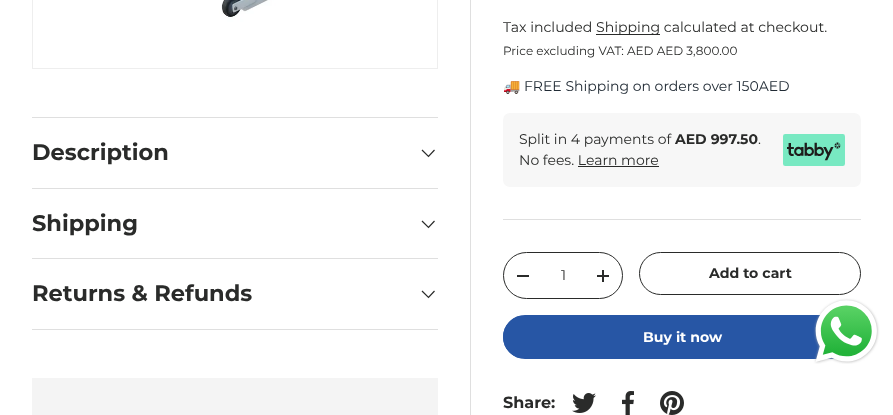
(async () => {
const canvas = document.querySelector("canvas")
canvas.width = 893
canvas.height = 415
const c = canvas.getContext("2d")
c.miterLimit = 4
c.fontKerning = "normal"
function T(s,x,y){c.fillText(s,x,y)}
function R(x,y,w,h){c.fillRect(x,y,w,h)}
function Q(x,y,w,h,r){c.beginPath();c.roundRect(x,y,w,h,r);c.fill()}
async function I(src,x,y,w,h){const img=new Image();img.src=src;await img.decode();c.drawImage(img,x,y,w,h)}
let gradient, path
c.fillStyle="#fff"
R(0,0,893,415)
c.fillStyle="#dfdfdf"
R(32,117,406,1)
R(32,188,406,1)
c.font="bold 22.5px Montserrat"
c.fillStyle="#2a2b2a"
T("Description",32,160)
path = new Path2D("M434.5 150l-6 6.5l-6.5-6.5")
c.strokeStyle="#2a2b2a"
c.lineWidth=1.2
c.stroke(path)
c.fillStyle="#dfdfdf"
R(32,258,406,1)
c.fillStyle="#2a2b2a"
T("Shipping",32,231)
path = new Path2D("M434.5 221l-6 6.5l-6.5-6.5")
c.stroke(path)
c.fillStyle="#dfdfdf"
R(32,329,406,1)
c.fillStyle="#2a2b2a"
T("Returns & Refunds",32,301)
path = new Path2D("M434.5 291l-6 6.5l-6.5-6.5")
c.stroke(path)
c.fillStyle="#f4f4f4"
R(32,378,406,37)
c.strokeStyle="#eee"
c.lineWidth=1
c.strokeRect(32.5,-.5,405,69)
await I("1.png",33,0,404,68)
c.fillStyle="#dfdfdf"
R(470,0,1,415)
c.font="14.1px Montserrat"
c.fillStyle="#2a2b2a"
T("Tax included",503,32)
R(596,34,64,1)
T("Shipping calculated at checkout.",596,32)
c.font="12px Montserrat"
T("Price excluding VAT: AED AED 3,800.00",503,55)
c.font="14px Noto Color Emoji"
c.fillStyle="#212b35"
T("🚚",503,91)
c.font="14px Montserrat"
T("FREE Shipping on orders over 150AED",524,91)
c.fillStyle="#f7f7f7"
Q(503,113,358,74,7)
c.fillStyle="#2a2b2a"
T("Split in 4 payments of",519,144)
c.font="bold 14px Montserrat"
T("AED 997.50",675,144)
c.font="14px Montserrat"
T(".",758,144)
T("No fees. Learn more",519,165)
R(578,166,81,1)
await I("2.png",783,134,62,32)
c.fillStyle="#dfdfdf"
R(503,219,358,1)
c.beginPath()
c.roundRect(503.5,252.5,119,46,23)
c.strokeStyle="#2a2b2a"
c.stroke()
c.fillStyle="#2a2b2a"
R(517,275,12,2)
c.font="14.1px Montserrat"
T("1",561,280)
R(597,275,12,2)
R(602,270,2,12)
c.beginPath()
c.roundRect(639.5,252.5,221,42,21)
c.stroke()
c.font="bold 14.1px Montserrat"
T("Add to cart",709,278)
c.save()
c.beginPath()
c.roundRect(503,315,358,44,22)
c.clip()
gradient = c.createLinearGradient(-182,210,834,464)
gradient.addColorStop(.6,"#5077ba")
gradient.addColorStop(.6,"#2756a5")
gradient.addColorStop(1,"#2756a5")
c.fillStyle = gradient
R(503,316,329,42)
c.restore()
c.beginPath()
c.roundRect(503.5,315.5,357,43,21.5)
c.strokeStyle="#2756a5"
c.stroke()
c.fillStyle="#fff"
T("Buy it now",643,342)
c.font="bold 16px Montserrat"
c.fillStyle="#2a2b2a"
T("Share:",503,408)
await I("3.png",572,393,24,20)
await I("4.png",622,391,12,24)
await I("5.png",660,391,24,24)
await I("6.png",813,298,67,66)
})()
